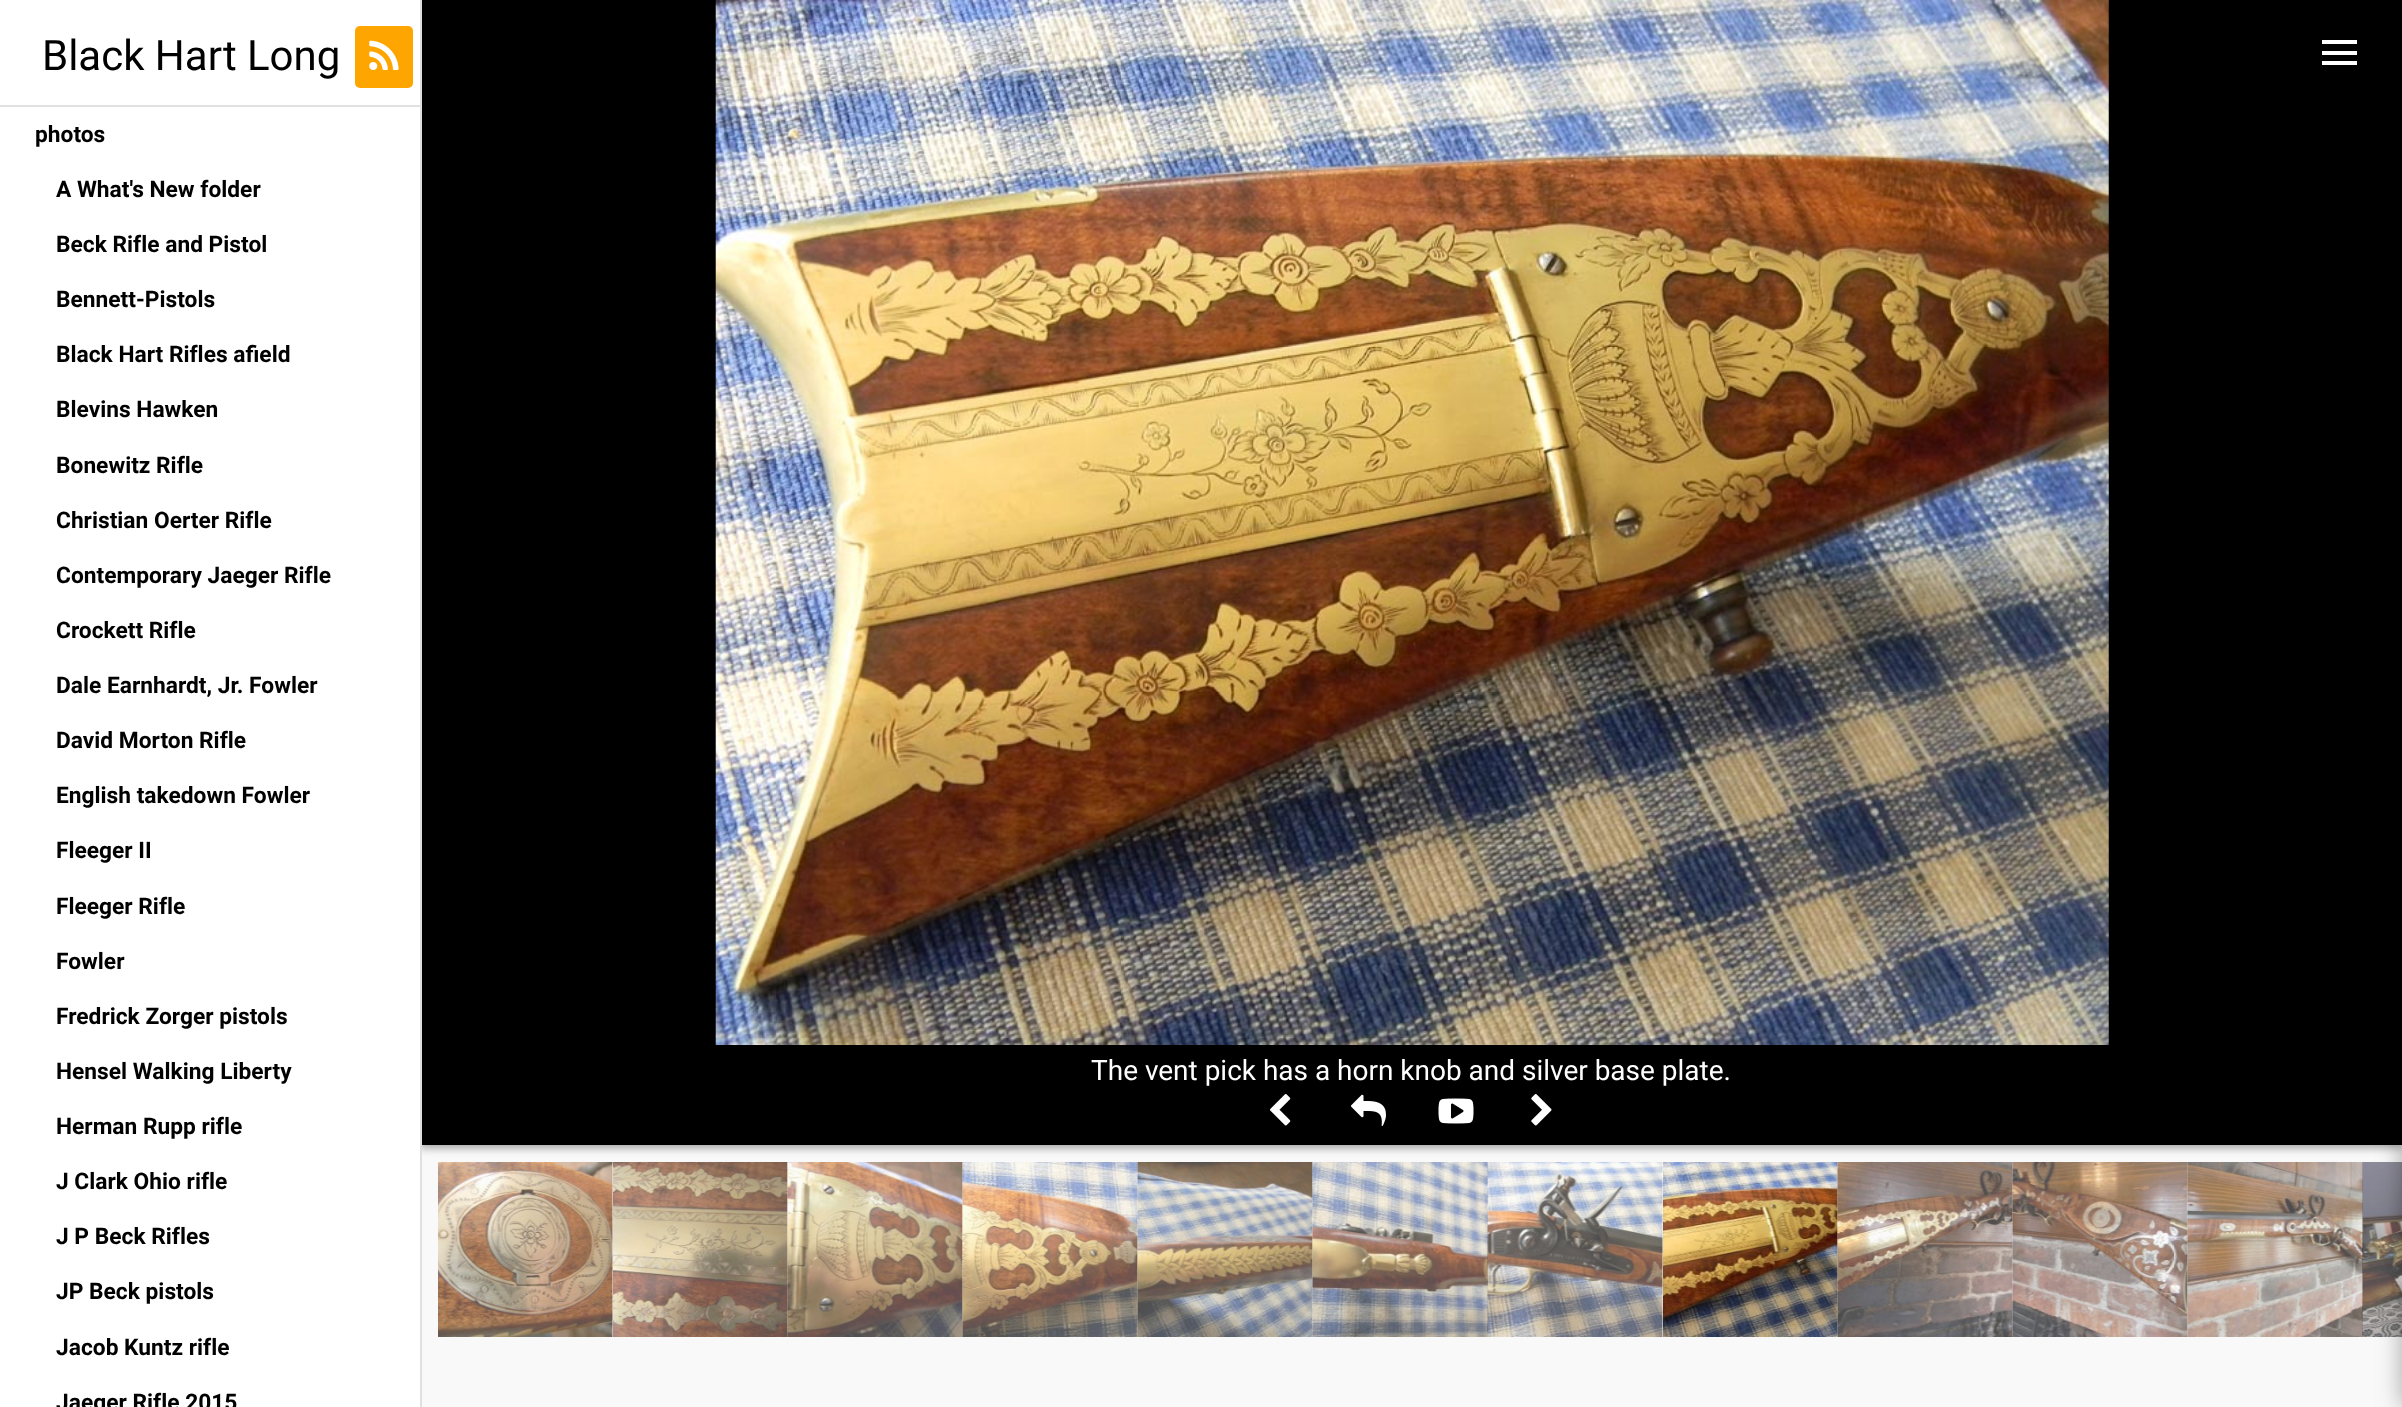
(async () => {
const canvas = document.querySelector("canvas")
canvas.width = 2402
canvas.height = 1407
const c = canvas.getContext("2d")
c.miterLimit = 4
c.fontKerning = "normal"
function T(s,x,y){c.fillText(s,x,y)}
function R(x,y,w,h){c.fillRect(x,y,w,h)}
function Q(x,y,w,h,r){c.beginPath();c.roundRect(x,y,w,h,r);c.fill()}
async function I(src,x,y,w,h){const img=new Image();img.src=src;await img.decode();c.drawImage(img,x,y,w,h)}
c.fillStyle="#f9f9f9"
R(0,0,2402,1407)
c.fillStyle="#00000059"
c.filter="blur(4.5px)"
c.beginPath()
c.rect(420,4,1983,1144)
c.fill()
c.filter="none"
c.fillStyle="#fff"
R(0,0,420,1407)
c.fillStyle="#e0e0e0"
R(420,0,2,1407)
R(0,105,420,2)
c.font="42px Roboto"
c.fillStyle="#000"
T("Black Hart Long",42,70)
c.fillStyle="#ffa500"
Q(355,26,58,62,5)
await I("1.png",369,40,30,30)
c.font="bold 22.75px Roboto"
c.fillStyle="#000"
T("photos",35,142)
T("A What's New folder",56,197)
T("Beck Rifle and Pistol",56,252)
T("Bennett-Pistols",56,307)
T("Black Hart Rifles afield",56,362)
T("Blevins Hawken",56,417)
T("Bonewitz Rifle",56,473)
T("Christian Oerter Rifle",56,528)
T("Contemporary Jaeger Rifle",56,583)
T("Crockett Rifle",56,638)
T("Dale Earnhardt, Jr. Fowler",56,693)
T("David Morton Rifle",56,748)
T("English takedown Fowler",56,803)
T("Fleeger II",56,858)
T("Fleeger Rifle",56,914)
T("Fowler",56,969)
T("Fredrick Zorger pistols",56,1024)
T("Hensel Walking Liberty",56,1079)
T("Herman Rupp rifle",56,1134)
T("J Clark Ohio rifle",56,1189)
T("J P Beck Rifles",56,1244)
T("JP Beck pistols",56,1299)
T("Jacob Kuntz rifle",56,1355)
T("Jaeger Rifle 2015",56,1410)
R(422,0,1980,1145)
c.fillStyle="#fff"
R(2322,51,35,4)
R(2322,40,35,4)
R(2322,61,35,4)
await I("14.png",1663,1162,175,175)
await I("15.png",1837,1162,176,175)
await I("16.png",2012,1162,176,175)
await I("17.png",2187,1162,176,175)
await I("18.png",2362,1162,40,175)
c.fillStyle="#0000005c"
c.filter="blur(13px)"
c.beginPath()
c.rect(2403,0,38,1407)
c.fill()
c.filter="none"
await I("2.png",715,0,1394,1045)
c.font="28px Roboto"
c.fillStyle="#fff"
T("The vent pick has a horn knob and silver base plate.",1091,1080)
await I("3.png",1270,1094,21,32)
await I("4.png",1351,1094,35,32)
await I("5.png",1438,1098,36,26)
await I("6.png",1531,1094,21,32)
await I("7.png",438,1162,175,175)
await I("8.png",613,1162,175,175)
await I("9.png",787,1162,176,175)
await I("10.png",962,1162,176,175)
await I("11.png",1137,1162,176,175)
await I("12.png",1312,1162,176,175)
await I("13.png",1487,1162,176,175)
})()
